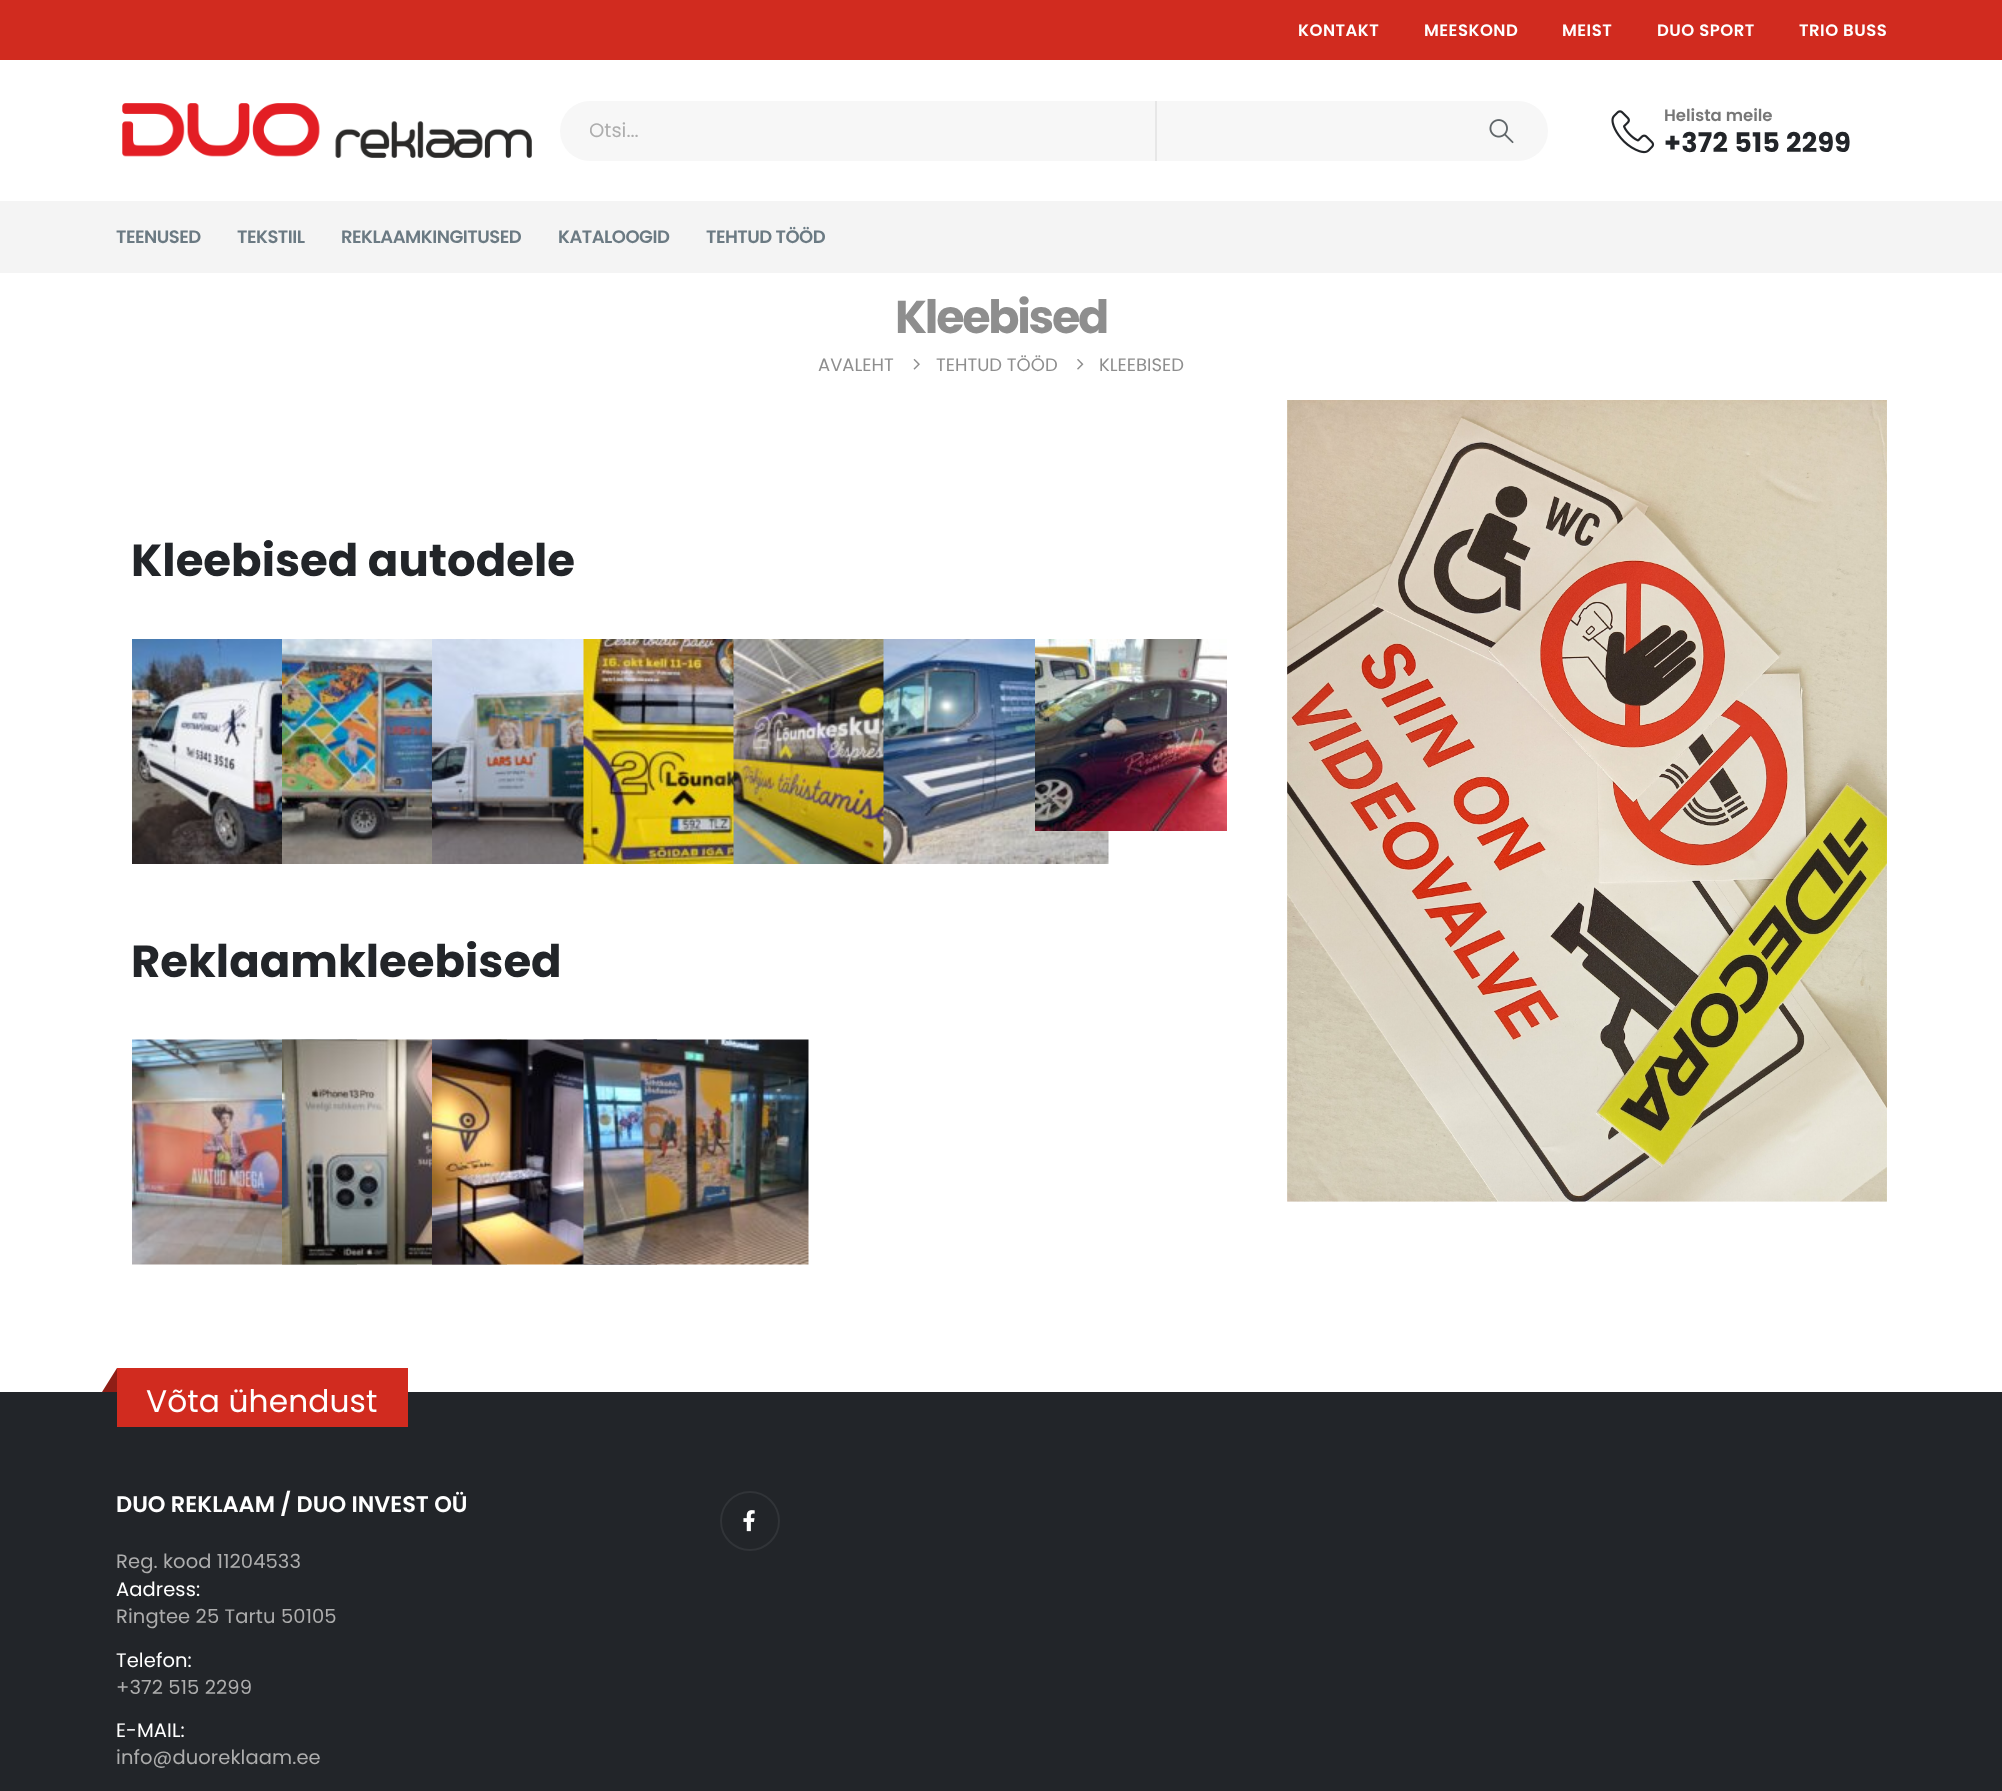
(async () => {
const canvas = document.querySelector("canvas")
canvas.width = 2002
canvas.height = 1791
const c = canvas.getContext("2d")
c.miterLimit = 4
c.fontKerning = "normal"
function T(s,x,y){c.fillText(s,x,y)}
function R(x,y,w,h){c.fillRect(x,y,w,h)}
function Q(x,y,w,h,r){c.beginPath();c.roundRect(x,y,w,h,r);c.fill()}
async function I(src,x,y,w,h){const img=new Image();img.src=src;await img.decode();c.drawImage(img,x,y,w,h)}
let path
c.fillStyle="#fff"
R(0,0,2002,1791)
c.fillStyle="#d12b1f"
R(0,0,2002,60)
c.letterSpacing="0.5px"
c.font="600 16.5px Poppins"
c.fillStyle="#fff"
T("KONTAKT",1298,36)
T("MEESKOND",1424,36)
T("MEIST",1562,36)
T("DUO SPORT",1657,36)
T("TRIO BUSS",1799,36)
await I("1.png",122,103,410,55)
c.fillStyle="#f7f7f7"
Q(560,101,988,60,30)
c.fillStyle="#e7e7e7"
R(1155,101,2,60)
c.save()
c.beginPath()
c.rect(590,116,543,30)
c.clip()
c.letterSpacing="0px"
c.font="19.5px Poppins"
c.fillStyle="#adadad"
T("Otsi...",589,137)
c.restore()
await I("2.png",1489,119,25,25)
await I("3.png",1611,110,44,44)
c.letterSpacing="0px"
c.fillStyle="#777"
T("Helista meile",1664,121)
c.letterSpacing="0.25px"
c.font="bold 27px Poppins"
c.fillStyle="#222529"
T("+372 515 2299",1664,152)
c.fillStyle="#f4f4f4"
R(0,201,2002,72)
c.letterSpacing="-0.5px"
c.font="600 18px Poppins"
c.fillStyle="#6b7a83"
T("TEENUSED",116,243)
T("TEKSTIIL",237,243)
T("REKLAAMKINGITUSED",341,243)
T("KATALOOGID",558,243)
T("TEHTUD TÖÖD",706,243)
c.letterSpacing="-2.25px"
c.font="bold 46px Poppins"
c.fillStyle="#8e8e8e"
T("Kleebised",895,333)
c.letterSpacing="0px"
c.font="18px Poppins"
T("AVALEHT",818,371)
await I("4.png",913,358,7,12)
T("TEHTUD TÖÖD",936,371)
await I("5.png",1077,359,7,11)
T("KLEEBISED",1099,371)
c.font="bold 45px Poppins"
c.fillStyle="#222529"
T("Kleebised autodele",131,576)
await I("6.png",132,639,150,225)
await I("7.png",282,639,150,225)
await I("8.png",432,639,152,225)
await I("9.png",583,639,151,225)
await I("10.png",733,639,151,225)
await I("11.png",883,639,226,225)
await I("12.png",1035,639,192,192)
T("Reklaamkleebised",131,977)
await I("13.png",132,1039,225,226)
await I("14.png",282,1039,225,226)
await I("15.png",432,1039,225,226)
await I("16.png",583,1039,226,226)
await I("17.png",1287,400,600,802)
R(0,1392,2002,399)
c.fillStyle="#d12b1f"
R(117,1368,291,59)
c.fillStyle="#8f1e16"
path = new Path2D("M117 1368v24h-15z")
c.fill(path)
c.letterSpacing="0.1px"
c.font="31.25px Poppins"
c.fillStyle="#fff"
T("Võta ühendust",146,1412)
c.letterSpacing="0px"
c.font="600 22.5px Poppins"
T("DUO REKLAAM / DUO INVEST OÜ",116,1512)
c.letterSpacing="0.1px"
c.font="19.5px Poppins"
c.fillStyle="#adadad"
T("Reg. kood 11204533",116,1568)
c.fillStyle="#fff"
T("Aadress:",116,1596)
c.fillStyle="#adadad"
T("Ringtee 25 Tartu 50105",116,1623)
c.fillStyle="#fff"
T("Telefon:",116,1667)
c.fillStyle="#adadad"
T("+372 515 2299",116,1694)
c.fillStyle="#fff"
T("E-MAIL:",116,1737)
c.fillStyle="#adadad"
T("info@duoreklaam.ee",116,1764)
c.beginPath()
c.arc(750,1521,29,0,7)
c.strokeStyle="#313438"
c.lineWidth=2
c.stroke()
await I("18.png",743,1510,12,22)
})()
